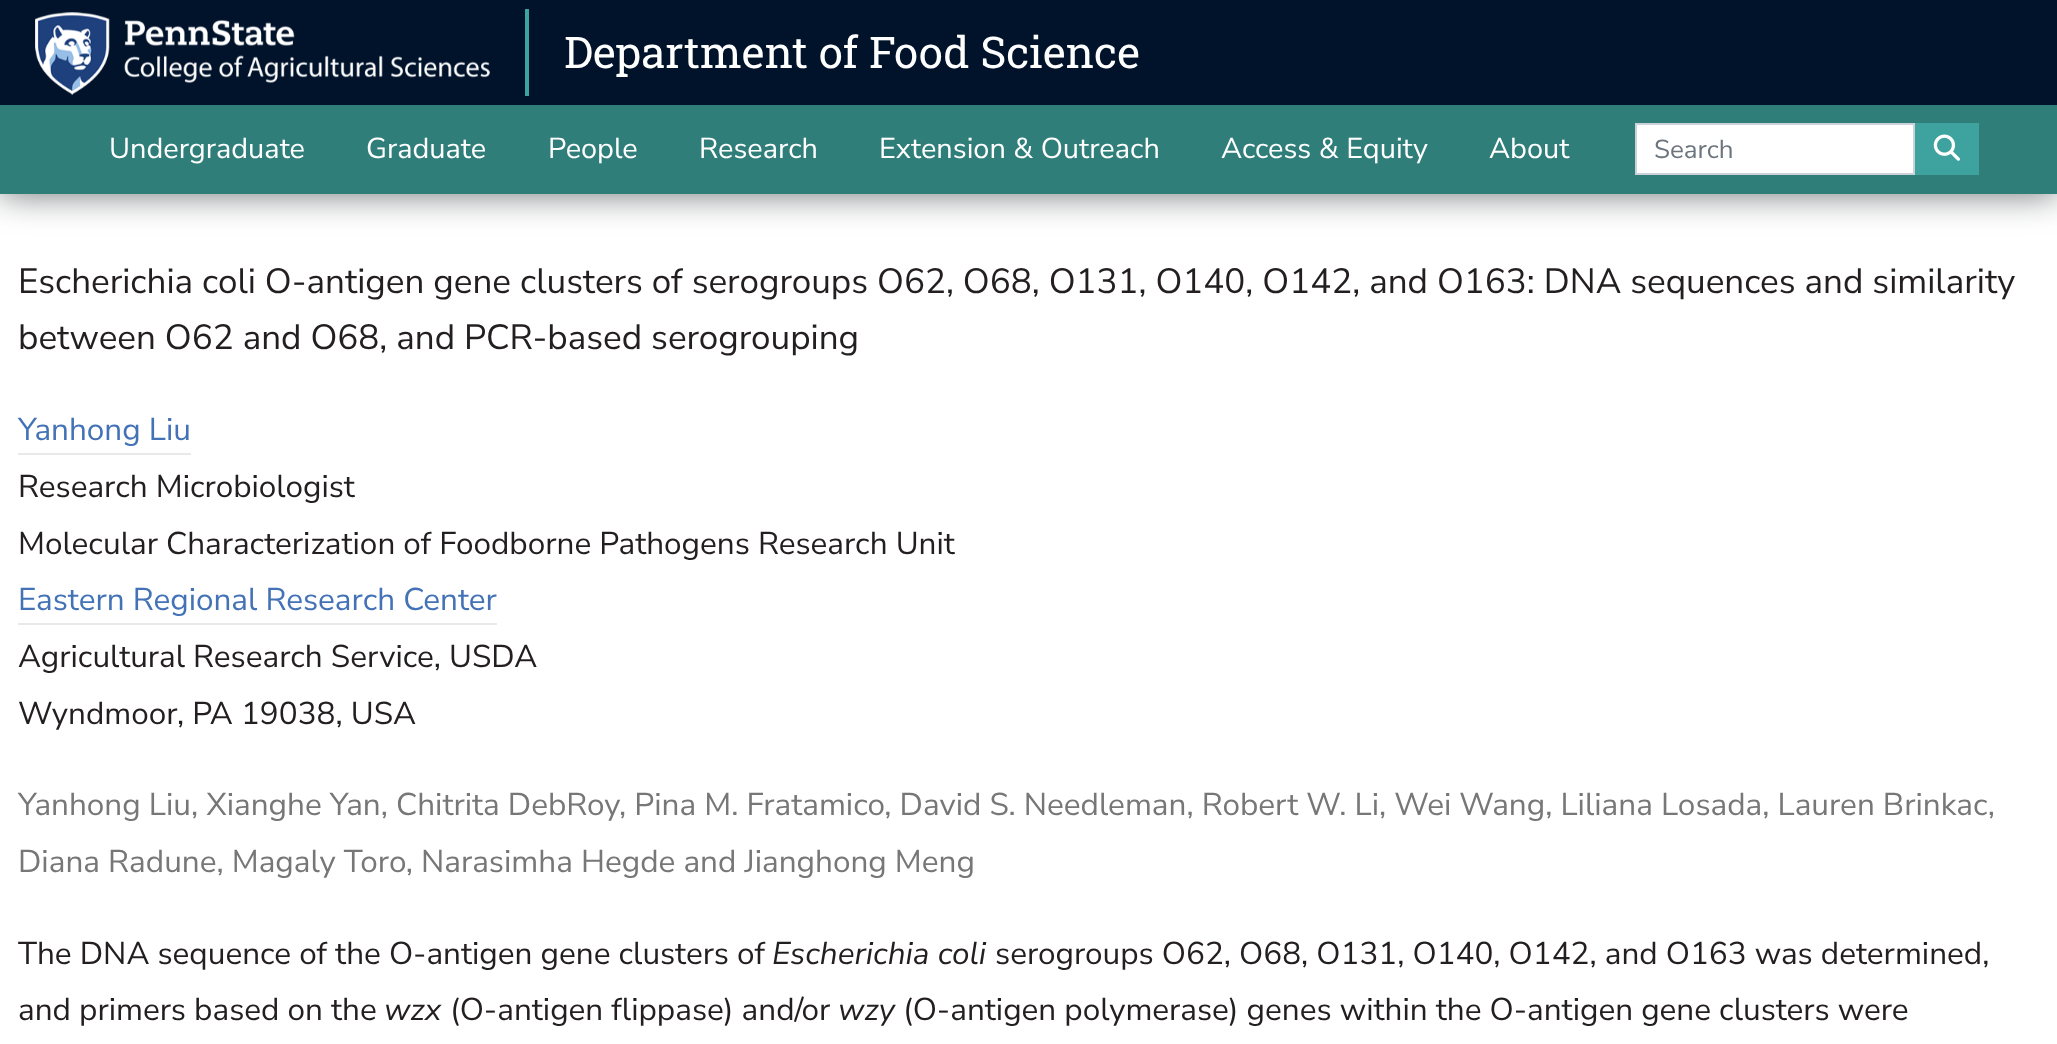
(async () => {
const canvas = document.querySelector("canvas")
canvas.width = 2057
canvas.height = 1044
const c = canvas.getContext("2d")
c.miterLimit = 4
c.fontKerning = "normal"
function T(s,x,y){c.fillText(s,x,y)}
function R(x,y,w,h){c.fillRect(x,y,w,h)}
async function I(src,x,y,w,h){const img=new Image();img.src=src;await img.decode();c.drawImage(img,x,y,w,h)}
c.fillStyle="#fff"
R(0,0,2057,1044)
c.fillStyle="#54585ad9"
c.filter="blur(17.5px)"
c.beginPath()
c.rect(0,0,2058,194)
c.fill()
c.filter="none"
c.fillStyle="#00132b"
R(0,0,2057,105)
await I("1.png",35,12,455,83)
c.fillStyle="#3ea39e"
R(525,9,4,87)
c.font="43.75px Roboto Slab"
c.fillStyle="#fff"
T("Department of Food Science",564,68)
c.fillStyle="#307e7a"
R(0,105,2057,89)
c.font="28.9px Nunito Sans"
c.fillStyle="#fff"
T("Undergraduate",109,158)
T("Graduate",366,158)
T("People",548,158)
T("Research",699,158)
T("Extension & Outreach",879,158)
T("Access & Equity",1221,158)
T("About",1489,158)
c.beginPath()
c.rect(1636,124,278,50)
c.fill()
c.strokeStyle="#ccd3d8"
c.lineWidth=2
c.stroke()
c.font="26px Nunito Sans"
c.fillStyle="#6c757d"
T("Search",1654,158)
c.fillStyle="#3ea39e"
R(1915,123,64,52)
await I("2.png",1933,134,27,27)
c.font="35px Nunito Sans"
c.fillStyle="#231e20"
T("Escherichia coli O-antigen gene clusters of serogroups O62, O68, O131, O140, O142, and O163: DNA sequences and similarity",18,293)
T("between O62 and O68, and PCR-based serogrouping",18,349)
c.font="31.5px Nunito Sans"
c.fillStyle="#4373b6"
T("Yanhong Liu",18,440)
c.fillStyle="#e9e9e9"
R(18,453,173,2)
c.fillStyle="#231e20"
T("Research Microbiologist",18,497)
T("Molecular Characterization of Foodborne Pathogens Research Unit",18,554)
c.fillStyle="#4373b6"
T("Eastern Regional Research Center",18,610)
c.fillStyle="#e9e9e9"
R(18,623,479,2)
c.fillStyle="#231e20"
T("Agricultural Research Service, USDA",18,667)
T("Wyndmoor, PA 19038, USA",18,724)
c.fillStyle="#777"
T("Yanhong Liu, Xianghe Yan, Chitrita DebRoy, Pina M. Fratamico, David S. Needleman, Robert W. Li, Wei Wang, Liliana Losada, Lauren Brinkac,",18,815)
T("Diana Radune, Magaly Toro, Narasimha Hegde and Jianghong Meng",18,872)
c.fillStyle="#231e20"
T("The DNA sequence of the O-antigen gene clusters of",18,964)
c.font="italic 31.5px Nunito Sans"
T("Escherichia coli",772,964)
c.font="31.5px Nunito Sans"
T("serogroups O62, O68, O131, O140, O142, and O163 was determined,",995,964)
T("and primers based on the",18,1020)
c.font="italic 31.5px Nunito Sans"
T("wzx",384,1020)
c.font="31.5px Nunito Sans"
T("(O-antigen flippase) and/or",450,1020)
c.font="italic 31.5px Nunito Sans"
T("wzy",838,1020)
c.font="31.5px Nunito Sans"
T("(O-antigen polymerase) genes within the O-antigen gene clusters were",903,1020)
})()
